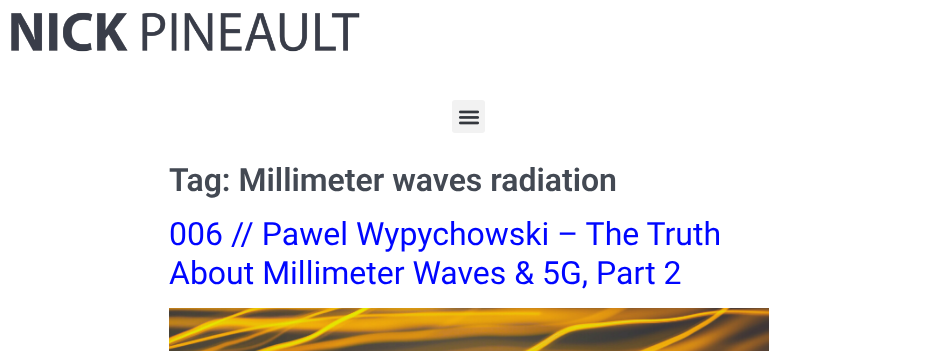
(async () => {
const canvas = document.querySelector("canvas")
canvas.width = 937
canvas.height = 351
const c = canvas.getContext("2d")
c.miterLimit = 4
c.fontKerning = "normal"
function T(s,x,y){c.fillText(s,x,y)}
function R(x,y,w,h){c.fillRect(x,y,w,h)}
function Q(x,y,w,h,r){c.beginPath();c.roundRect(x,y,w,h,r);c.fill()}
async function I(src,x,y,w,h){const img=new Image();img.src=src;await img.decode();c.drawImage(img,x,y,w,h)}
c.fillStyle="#fff"
R(0,0,937,351)
await I("1.png",11,12,349,40)
c.fillStyle="#f2f2f2"
Q(452,100,33,33,3)
await I("2.png",458,110,22,15)
c.font="600 32px Roboto"
c.fillStyle="#434953"
T("Tag: Millimeter waves radiation",169,191)
c.font="32px Roboto"
c.fillStyle="#0006ff"
T("006 // Pawel Wypychowski – The Truth",169,245)
T("About Millimeter Waves & 5G, Part 2",169,284)
await I("3.png",169,308,600,43)
})()
